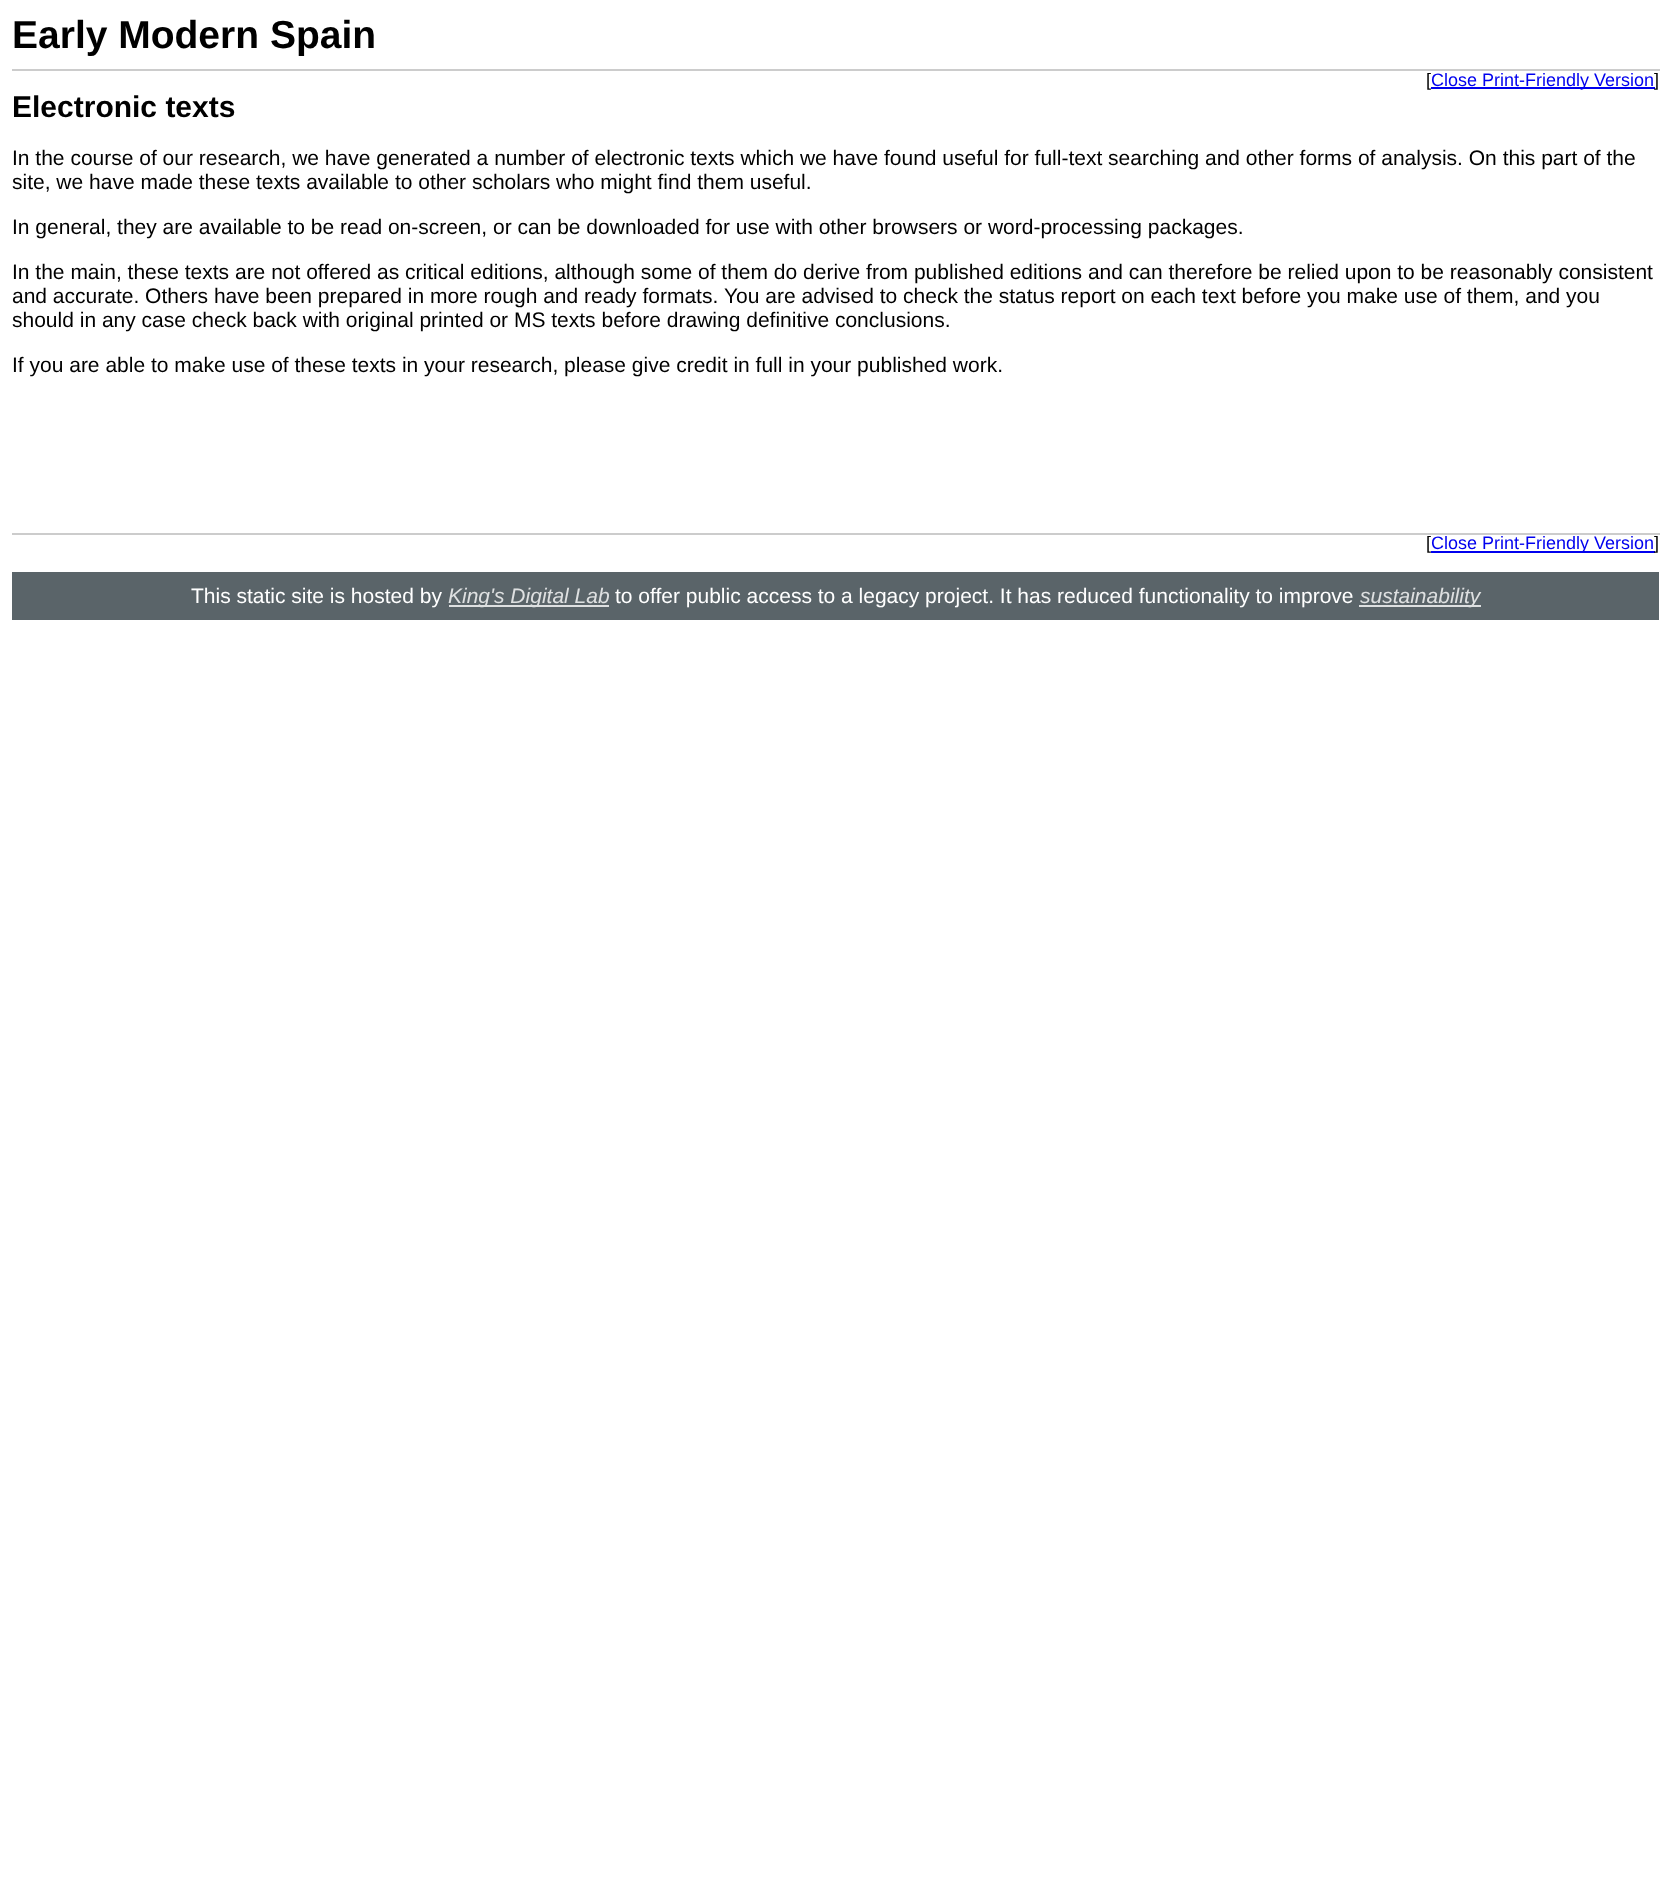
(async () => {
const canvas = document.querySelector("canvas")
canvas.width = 1670
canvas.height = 1885
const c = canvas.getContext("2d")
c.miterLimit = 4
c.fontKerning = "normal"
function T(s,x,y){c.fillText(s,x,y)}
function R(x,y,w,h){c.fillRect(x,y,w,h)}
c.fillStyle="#fff"
R(0,0,1670,1885)
c.font="bold 39px Liberation Sans"
c.fillStyle="#000"
T("Early Modern Spain",12,48)
c.fillStyle="#ccc"
R(12,69,1648,2)
c.font="18px Liberation Sans"
c.fillStyle="#000"
T("[",1426,86)
c.fillStyle="#00e"
R(1431,87,224,2)
T("Close Print-Friendly Version",1431,86)
c.fillStyle="#000"
T("]",1654,86)
c.font="bold 30px Liberation Sans"
T("Electronic texts",12,117)
c.font="21px Liberation Sans"
T("In the course of our research, we have generated a number of electronic texts which we have found useful for full-text searching and other forms of analysis. On this part of the",12,165)
T("site, we have made these texts available to other scholars who might find them useful.",12,189)
T("In general, they are available to be read on-screen, or can be downloaded for use with other browsers or word-processing packages.",12,234)
T("In the main, these texts are not offered as critical editions, although some of them do derive from published editions and can therefore be relied upon to be reasonably consistent",12,279)
T("and accurate. Others have been prepared in more rough and ready formats.",12,303)
T("You are advised to check the status report on each text before you make use of them, and you",724,303)
T("should in any case check back with original printed or MS texts before drawing definitive conclusions.",12,327)
T("If you are able to make use of these texts in your research, please give credit in full in your published work.",12,372)
c.fillStyle="#ccc"
R(12,533,1648,2)
c.font="18px Liberation Sans"
c.fillStyle="#000"
T("[",1426,549)
c.fillStyle="#00e"
R(1431,551,224,2)
T("Close Print-Friendly Version",1431,549)
c.fillStyle="#000"
T("]",1654,549)
c.fillStyle="#5a6469"
R(12,572,1647,48)
c.font="21px Liberation Sans"
c.fillStyle="#fff"
T("This static site is hosted by",191,603)
c.fillStyle="#dee0e1"
R(449,605,160,2)
c.font="italic 21px Liberation Sans"
T("King's Digital Lab",448,603)
c.font="21px Liberation Sans"
c.fillStyle="#fff"
T("to offer public access to a legacy project. It has reduced functionality to improve",615,603)
c.fillStyle="#dee0e1"
R(1359,605,122,2)
c.font="italic 21px Liberation Sans"
T("sustainability",1360,603)
})()
